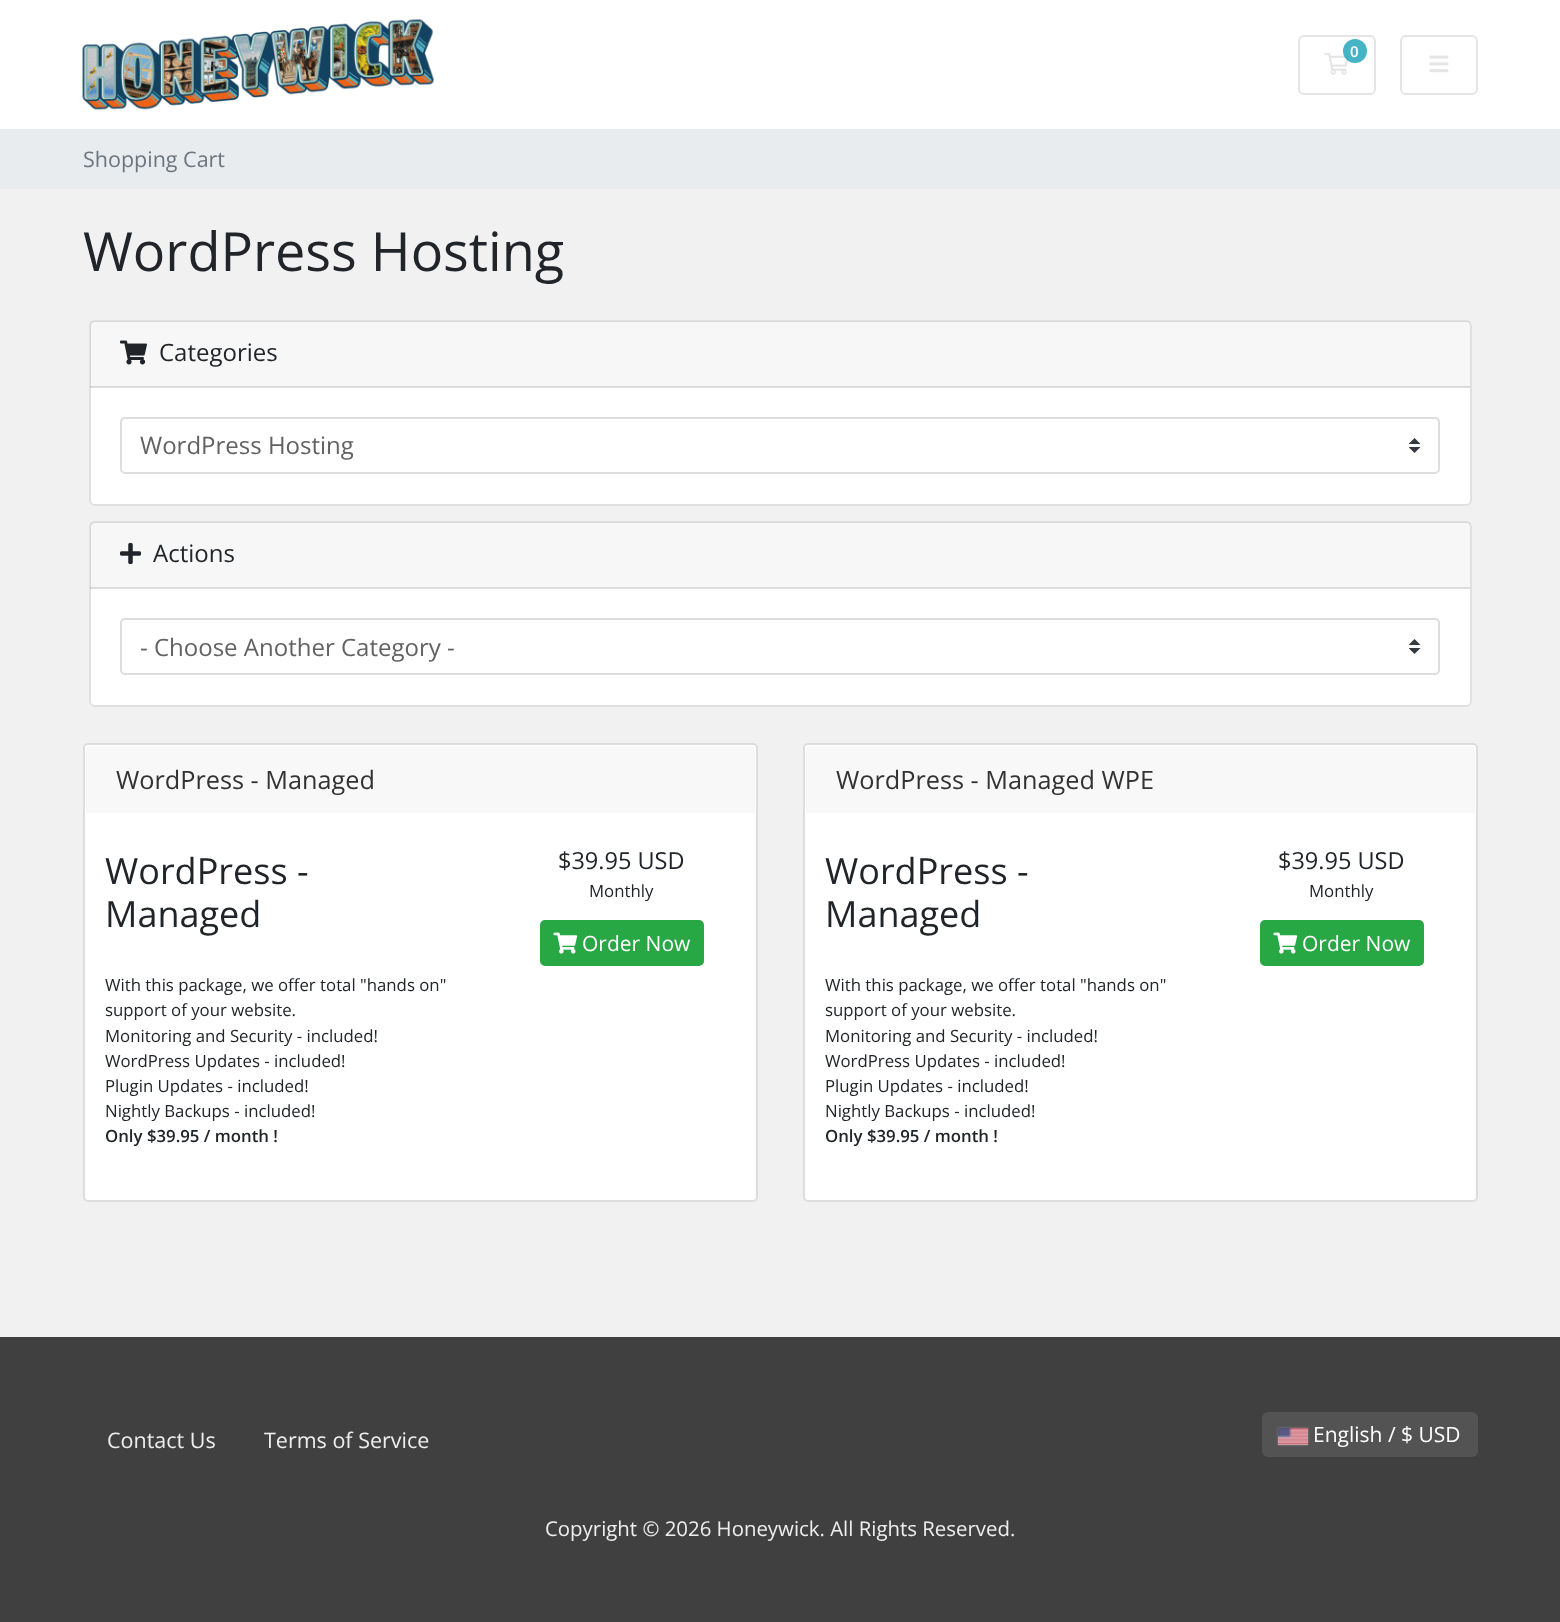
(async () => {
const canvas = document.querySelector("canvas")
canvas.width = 1560
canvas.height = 1622
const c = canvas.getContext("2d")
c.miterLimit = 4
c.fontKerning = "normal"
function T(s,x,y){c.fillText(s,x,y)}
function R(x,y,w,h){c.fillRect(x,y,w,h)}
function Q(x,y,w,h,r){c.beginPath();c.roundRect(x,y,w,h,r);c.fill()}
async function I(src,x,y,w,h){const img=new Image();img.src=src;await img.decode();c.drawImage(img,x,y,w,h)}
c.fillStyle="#f1f1f1"
R(0,0,1560,1622)
c.fillStyle="#fff"
R(0,0,1560,129)
await I("1.png",82,19,352,91)
c.beginPath()
c.roundRect(1299,36,76,58,5)
c.strokeStyle="#e5e5e5"
c.lineWidth=2
c.stroke()
await I("2.png",1324,53,25,22)
c.fillStyle="#17a2b8cc"
c.beginPath()
c.arc(1355,51,12,0,7)
c.fill()
c.font="600 15px Open Sans"
c.fillStyle="#fff"
T("0",1350,57)
c.beginPath()
c.roundRect(1401,36,76,58,5)
c.stroke()
await I("3.png",1429,55,20,18)
c.fillStyle="#e9ecef"
R(0,129,1560,60)
c.font="21.5px Open Sans"
c.fillStyle="#6c757d"
T("Shopping Cart",83,167)
c.font="54px Open Sans"
c.fillStyle="#212529"
T("WordPress Hosting",83,271)
c.fillStyle="#fff"
Q(89,320,1383,186,6)
c.beginPath()
c.roundRect(90,321,1381,184,5)
c.strokeStyle="#0000001f"
c.stroke()
c.fillStyle="#00000008"
R(90,321,1380,66)
c.fillStyle="#0000001f"
R(90,386,1380,2)
await I("4.png",120,340,27,25)
c.font="24px Open Sans"
c.fillStyle="#212529"
T("Categories",159,361)
await I("5.png",1409,438,12,15)
c.beginPath()
c.roundRect(121,418,1318,55,4)
c.strokeStyle="#ddd"
c.stroke()
c.fillStyle="#626262"
T("WordPress Hosting",140,454)
c.fillStyle="#fff"
Q(89,521,1383,186,6)
c.beginPath()
c.roundRect(90,522,1381,184,5)
c.strokeStyle="#0000001f"
c.stroke()
c.fillStyle="#00000008"
R(90,522,1380,66)
c.fillStyle="#0000001f"
R(90,587,1380,2)
await I("6.png",120,543,21,21)
c.fillStyle="#212529"
T("Actions",153,562)
await I("5.png",1409,639,12,15)
c.beginPath()
c.roundRect(121,619,1318,55,4)
c.strokeStyle="#ddd"
c.stroke()
c.fillStyle="#626262"
T("- Choose Another Category -",140,656)
c.fillStyle="#fff"
c.beginPath()
c.roundRect(84,744,673,457,4)
c.fill()
c.stroke()
c.fillStyle="#f8f8f8"
c.beginPath()
c.roundRect(86,746,669,67,[5,5,0,0])
c.fill()
c.font="25.25px Open Sans"
c.fillStyle="#333"
T("WordPress - Managed",116,789)
c.font="36px Open Sans"
c.fillStyle="#212529"
T("WordPress -",105,884)
T("Managed",105,927)
c.font="16.8px Open Sans"
T("With this package, we offer total \"hands on\"",105,991)
T("support of your website.",105,1016)
T("Monitoring and Security - included!",105,1042)
T("WordPress Updates - included!",105,1067)
T("Plugin Updates - included!",105,1092)
T("Nightly Backups - included!",105,1117)
c.font="600 16.8px Open Sans"
T("Only $39.95 / month !",105,1142)
c.font="23.5px Open Sans"
T("$39.95 USD",558,869)
c.font="16.8px Open Sans"
T("Monthly",589,897)
c.fillStyle="#28a745"
c.beginPath()
c.roundRect(541,921,162,44,4)
c.fill()
c.strokeStyle="#28a745"
c.stroke()
await I("7.png",553,932,25,22)
c.font="21px Open Sans"
c.fillStyle="#fff"
T("Order Now",582,951)
c.beginPath()
c.roundRect(804,744,673,457,4)
c.fill()
c.strokeStyle="#ddd"
c.stroke()
c.fillStyle="#f8f8f8"
c.beginPath()
c.roundRect(806,746,669,67,[5,5,0,0])
c.fill()
c.font="25.25px Open Sans"
c.fillStyle="#333"
T("WordPress - Managed WPE",836,789)
c.font="36px Open Sans"
c.fillStyle="#212529"
T("WordPress -",825,884)
T("Managed",825,927)
c.font="16.8px Open Sans"
T("With this package, we offer total \"hands on\"",825,991)
T("support of your website.",825,1016)
T("Monitoring and Security - included!",825,1042)
T("WordPress Updates - included!",825,1067)
T("Plugin Updates - included!",825,1092)
T("Nightly Backups - included!",825,1117)
c.font="600 16.8px Open Sans"
T("Only $39.95 / month !",825,1142)
c.font="23.5px Open Sans"
T("$39.95 USD",1278,869)
c.font="16.8px Open Sans"
T("Monthly",1309,897)
c.fillStyle="#28a745"
c.beginPath()
c.roundRect(1261,921,162,44,4)
c.fill()
c.strokeStyle="#28a745"
c.stroke()
await I("7.png",1273,932,25,22)
c.font="21px Open Sans"
c.fillStyle="#fff"
T("Order Now",1302,951)
c.fillStyle="#404040"
R(0,1337,1560,285)
c.font="21.5px Open Sans"
c.fillStyle="#eee"
T("Contact Us",107,1448)
T("Terms of Service",264,1448)
c.fillStyle="#535353"
Q(1262,1412,216,45,6)
c.fillStyle="#888"
c.filter="blur(1px)"
c.beginPath()
c.rect(1278,1428,30,17)
c.fill()
c.filter="none"
c.fillStyle="#dbdbdb"
R(1278,1444,30,1)
await I("8.png",1278,1428,30,17)
c.font="21px Open Sans"
c.fillStyle="#fff"
T("English / $ USD",1313,1442)
c.font="20.4px Open Sans"
c.fillStyle="#eee"
T("Copyright © 2026 Honeywick. All Rights Reserved.",545,1536)
})()
